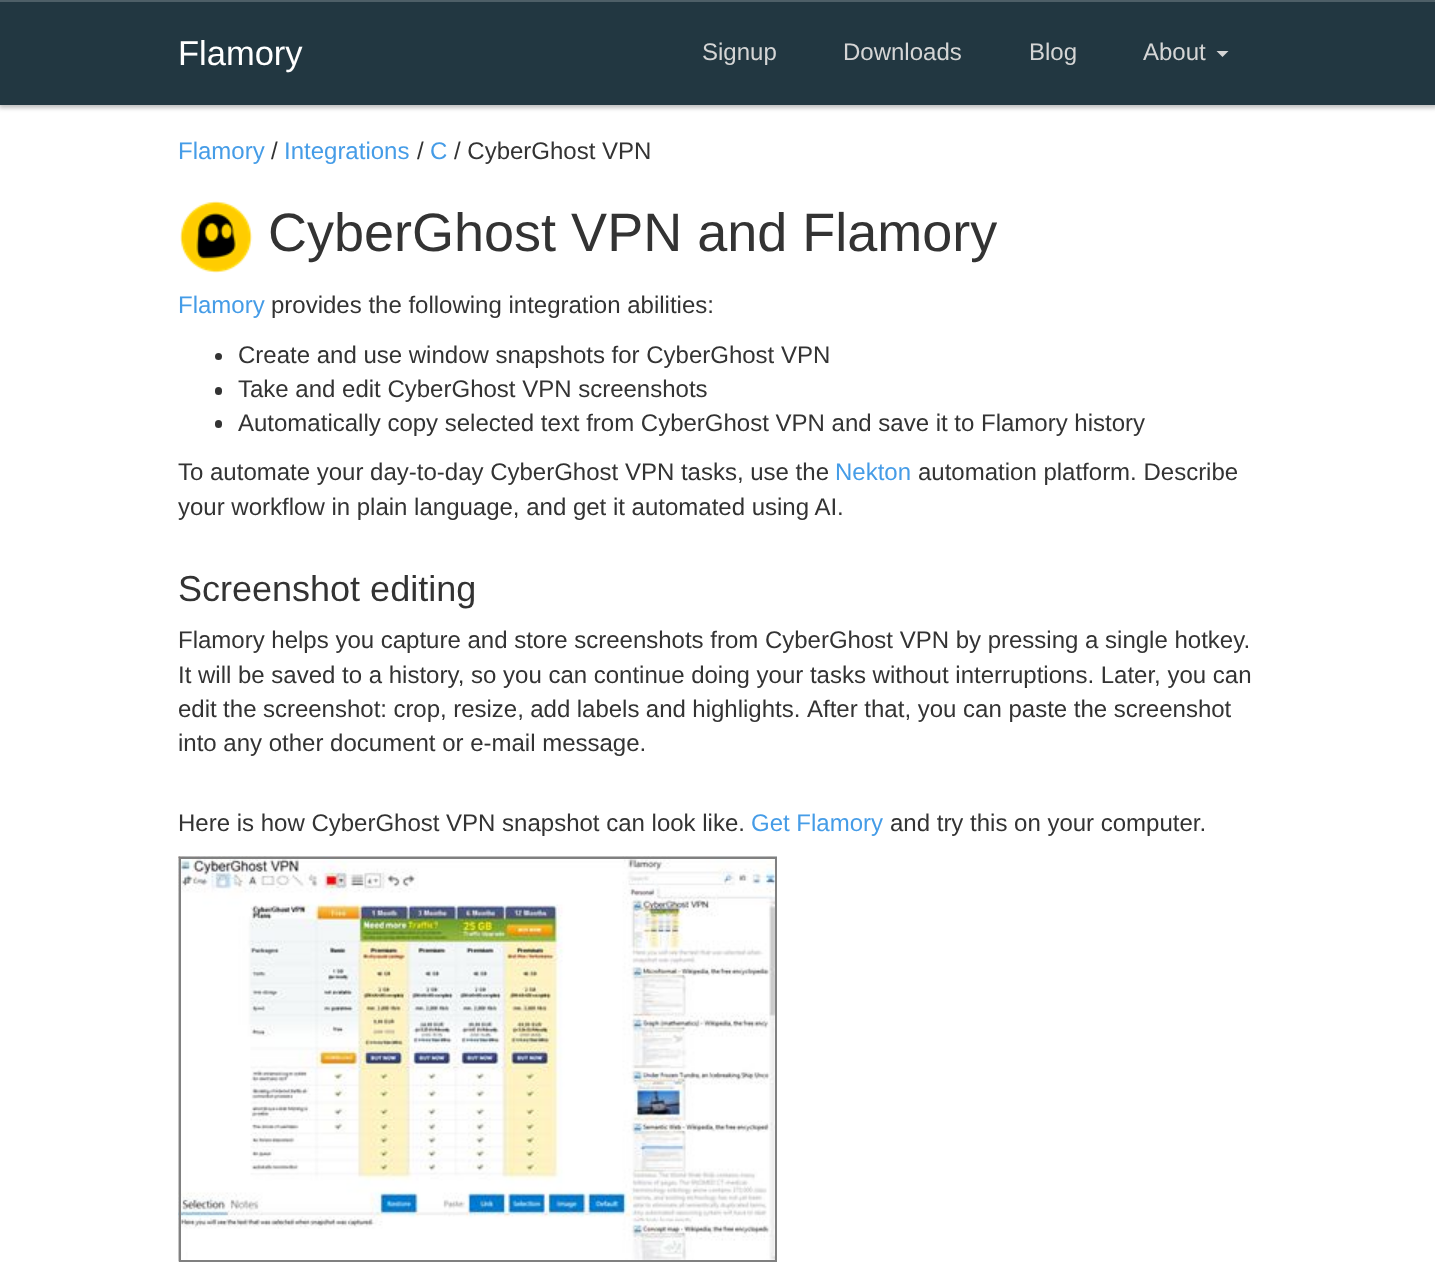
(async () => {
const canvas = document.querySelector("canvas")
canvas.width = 1435
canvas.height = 1287
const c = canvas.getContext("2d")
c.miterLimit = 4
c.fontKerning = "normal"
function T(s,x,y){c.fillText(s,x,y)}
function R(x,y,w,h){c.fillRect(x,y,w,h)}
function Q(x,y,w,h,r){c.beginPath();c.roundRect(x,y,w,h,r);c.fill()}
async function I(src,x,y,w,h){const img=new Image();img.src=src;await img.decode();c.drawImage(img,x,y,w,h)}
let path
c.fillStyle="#fff"
R(0,0,1435,1287)
c.fillStyle="#2e2e2e4d"
c.filter="blur(2px)"
c.beginPath()
c.rect(-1,0,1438,108)
c.fill()
c.filter="none"
c.fillStyle="#223741"
R(0,2,1435,103)
c.fillStyle="#4e5f67"
R(0,0,1435,2)
c.font="34.5px Liberation Sans"
c.fillStyle="#fff"
T("Flamory",178,65)
c.font="24px Liberation Sans"
c.fillStyle="#d5d5d5"
T("Signup",702,60)
T("Downloads",843,60)
T("Blog",1029,60)
T("About",1143,60)
path = new Path2D("M1216.5 51h12l-6 6z")
c.fill(path)
c.fillStyle="#459ce7"
T("Flamory",178,159)
c.fillStyle="#333"
T("/",271,159)
c.fillStyle="#459ce7"
T("Integrations",284,159)
c.fillStyle="#333"
T("/",417,159)
c.fillStyle="#459ce7"
T("C",430,159)
c.fillStyle="#333"
T("/ CyberGhost VPN",454,159)
await I("1.png",180,201,73,72)
c.font="54px Liberation Sans"
T("CyberGhost VPN and Flamory",268,251)
c.font="24px Liberation Sans"
c.fillStyle="#459ce7"
T("Flamory",178,313)
c.fillStyle="#333"
T("provides the following integration abilities:",271,313)
c.beginPath()
c.arc(218.5,356.5,3.5,0,7)
c.fill()
T("Create and use window snapshots for CyberGhost VPN",238,363)
Q(215,387,7,8,3.5)
T("Take and edit CyberGhost VPN screenshots",238,397)
Q(215,420,7,8,3.5)
T("Automatically copy selected text from CyberGhost VPN and save it to Flamory history",238,431)
T("To automate your day-to-day CyberGhost VPN tasks, use the",178,480)
c.fillStyle="#459ce7"
T("Nekton",835,480)
c.fillStyle="#333"
T("automation platform. Describe",918,480)
T("your workflow in plain language, and get it automated using AI.",178,515)
c.font="36px Liberation Sans"
T("Screenshot editing",178,601)
c.font="24px Liberation Sans"
T("Flamory helps you capture and store screenshots from CyberGhost VPN by pressing a single hotkey.",178,648)
T("It will be saved to a history, so you can continue doing your tasks without interruptions. Later, you can",178,683)
c.wordSpacing="-0.25px"
T("edit the screenshot: crop, resize, add labels and highlights.",178,717)
c.wordSpacing="0px"
T("After that, you can paste the screenshot",807,717)
T("into any other document or e-mail message.",178,751)
T("Here is how CyberGhost VPN snapshot can look like.",178,831)
c.fillStyle="#459ce7"
T("Get Flamory",751,831)
c.fillStyle="#333"
T("and try this on your computer.",890,831)
await I("2.png",178,856,599,406)
c.strokeStyle="#808080"
c.lineWidth=2
c.strokeRect(180,858,596,403)
})()
